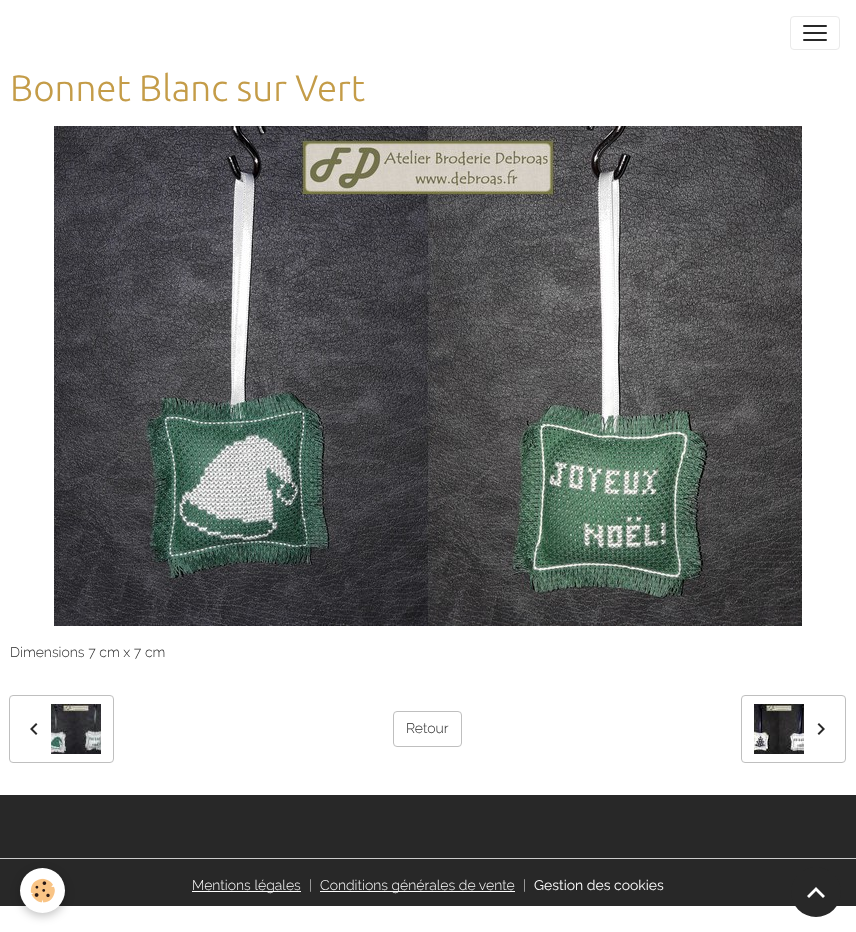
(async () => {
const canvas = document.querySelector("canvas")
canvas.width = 856
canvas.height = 932
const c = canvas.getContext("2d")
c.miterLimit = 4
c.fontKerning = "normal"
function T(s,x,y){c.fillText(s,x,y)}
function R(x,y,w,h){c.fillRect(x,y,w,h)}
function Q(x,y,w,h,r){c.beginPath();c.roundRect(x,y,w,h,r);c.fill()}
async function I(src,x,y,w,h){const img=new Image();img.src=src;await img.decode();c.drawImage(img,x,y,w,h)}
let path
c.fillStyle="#fff"
R(0,0,856,932)
c.beginPath()
c.roundRect(790.5,16.5,49,33,3.5)
c.strokeStyle="#eaeaea"
c.stroke()
c.fillStyle="#282828"
Q(803,25,24,2,1)
Q(803,32,24,2,1)
Q(803,39,24,2,1)
c.font="300 36.75px Ubuntu"
c.fillStyle="#c49c48"
T("Bonnet Blanc sur Vert",10,101)
await I("1.png",54,126,748,500)
c.font="300 14px Raleway"
c.fillStyle="#282828"
T("Dimensions 7 cm x 7 cm",10,657)
c.beginPath()
c.roundRect(9.5,695.5,104,67,3.5)
c.strokeStyle="#bfbfbf"
c.stroke()
await I("2.png",30,723,8,12)
await I("3.png",51,704,50,50)
c.beginPath()
c.roundRect(393.5,711.5,68,35,3.5)
c.stroke()
T("Retour",406,733)
c.beginPath()
c.roundRect(741.5,695.5,104,67,3.5)
c.stroke()
await I("4.png",754,704,50,50)
await I("5.png",817,723,8,12)
R(0,795,856,111)
c.fillStyle="#ccc"
R(0,858,856,1)
c.fillStyle="#0000003d"
c.filter="blur(5px)"
c.beginPath()
c.roundRect(20,871,45,45,22.5)
c.fill()
c.filter="none"
c.fillStyle="#fff"
c.beginPath()
c.arc(42.5,890.5,22.5,0,7)
c.fill()
await I("6.png",30,878,25,25)
R(192,891,109,1)
T("Mentions légales",192,890)
c.fillStyle="#d4d4d4"
T("|",309,890)
c.fillStyle="#fff"
R(320,891,195,1)
T("Conditions générales de vente",320,890)
c.fillStyle="#d4d4d4"
T("|",523,890)
c.font="14px Raleway"
c.fillStyle="#fff"
T("Gestion des cookies",534,890)
c.fillStyle="#282828"
c.beginPath()
c.arc(816,892,25,0,7)
c.fill()
c.fillStyle="#fff"
path = new Path2D("M816 887l9 9l-2 2l-7-7l-7 7l-2-2z")
c.fill(path)
})()
